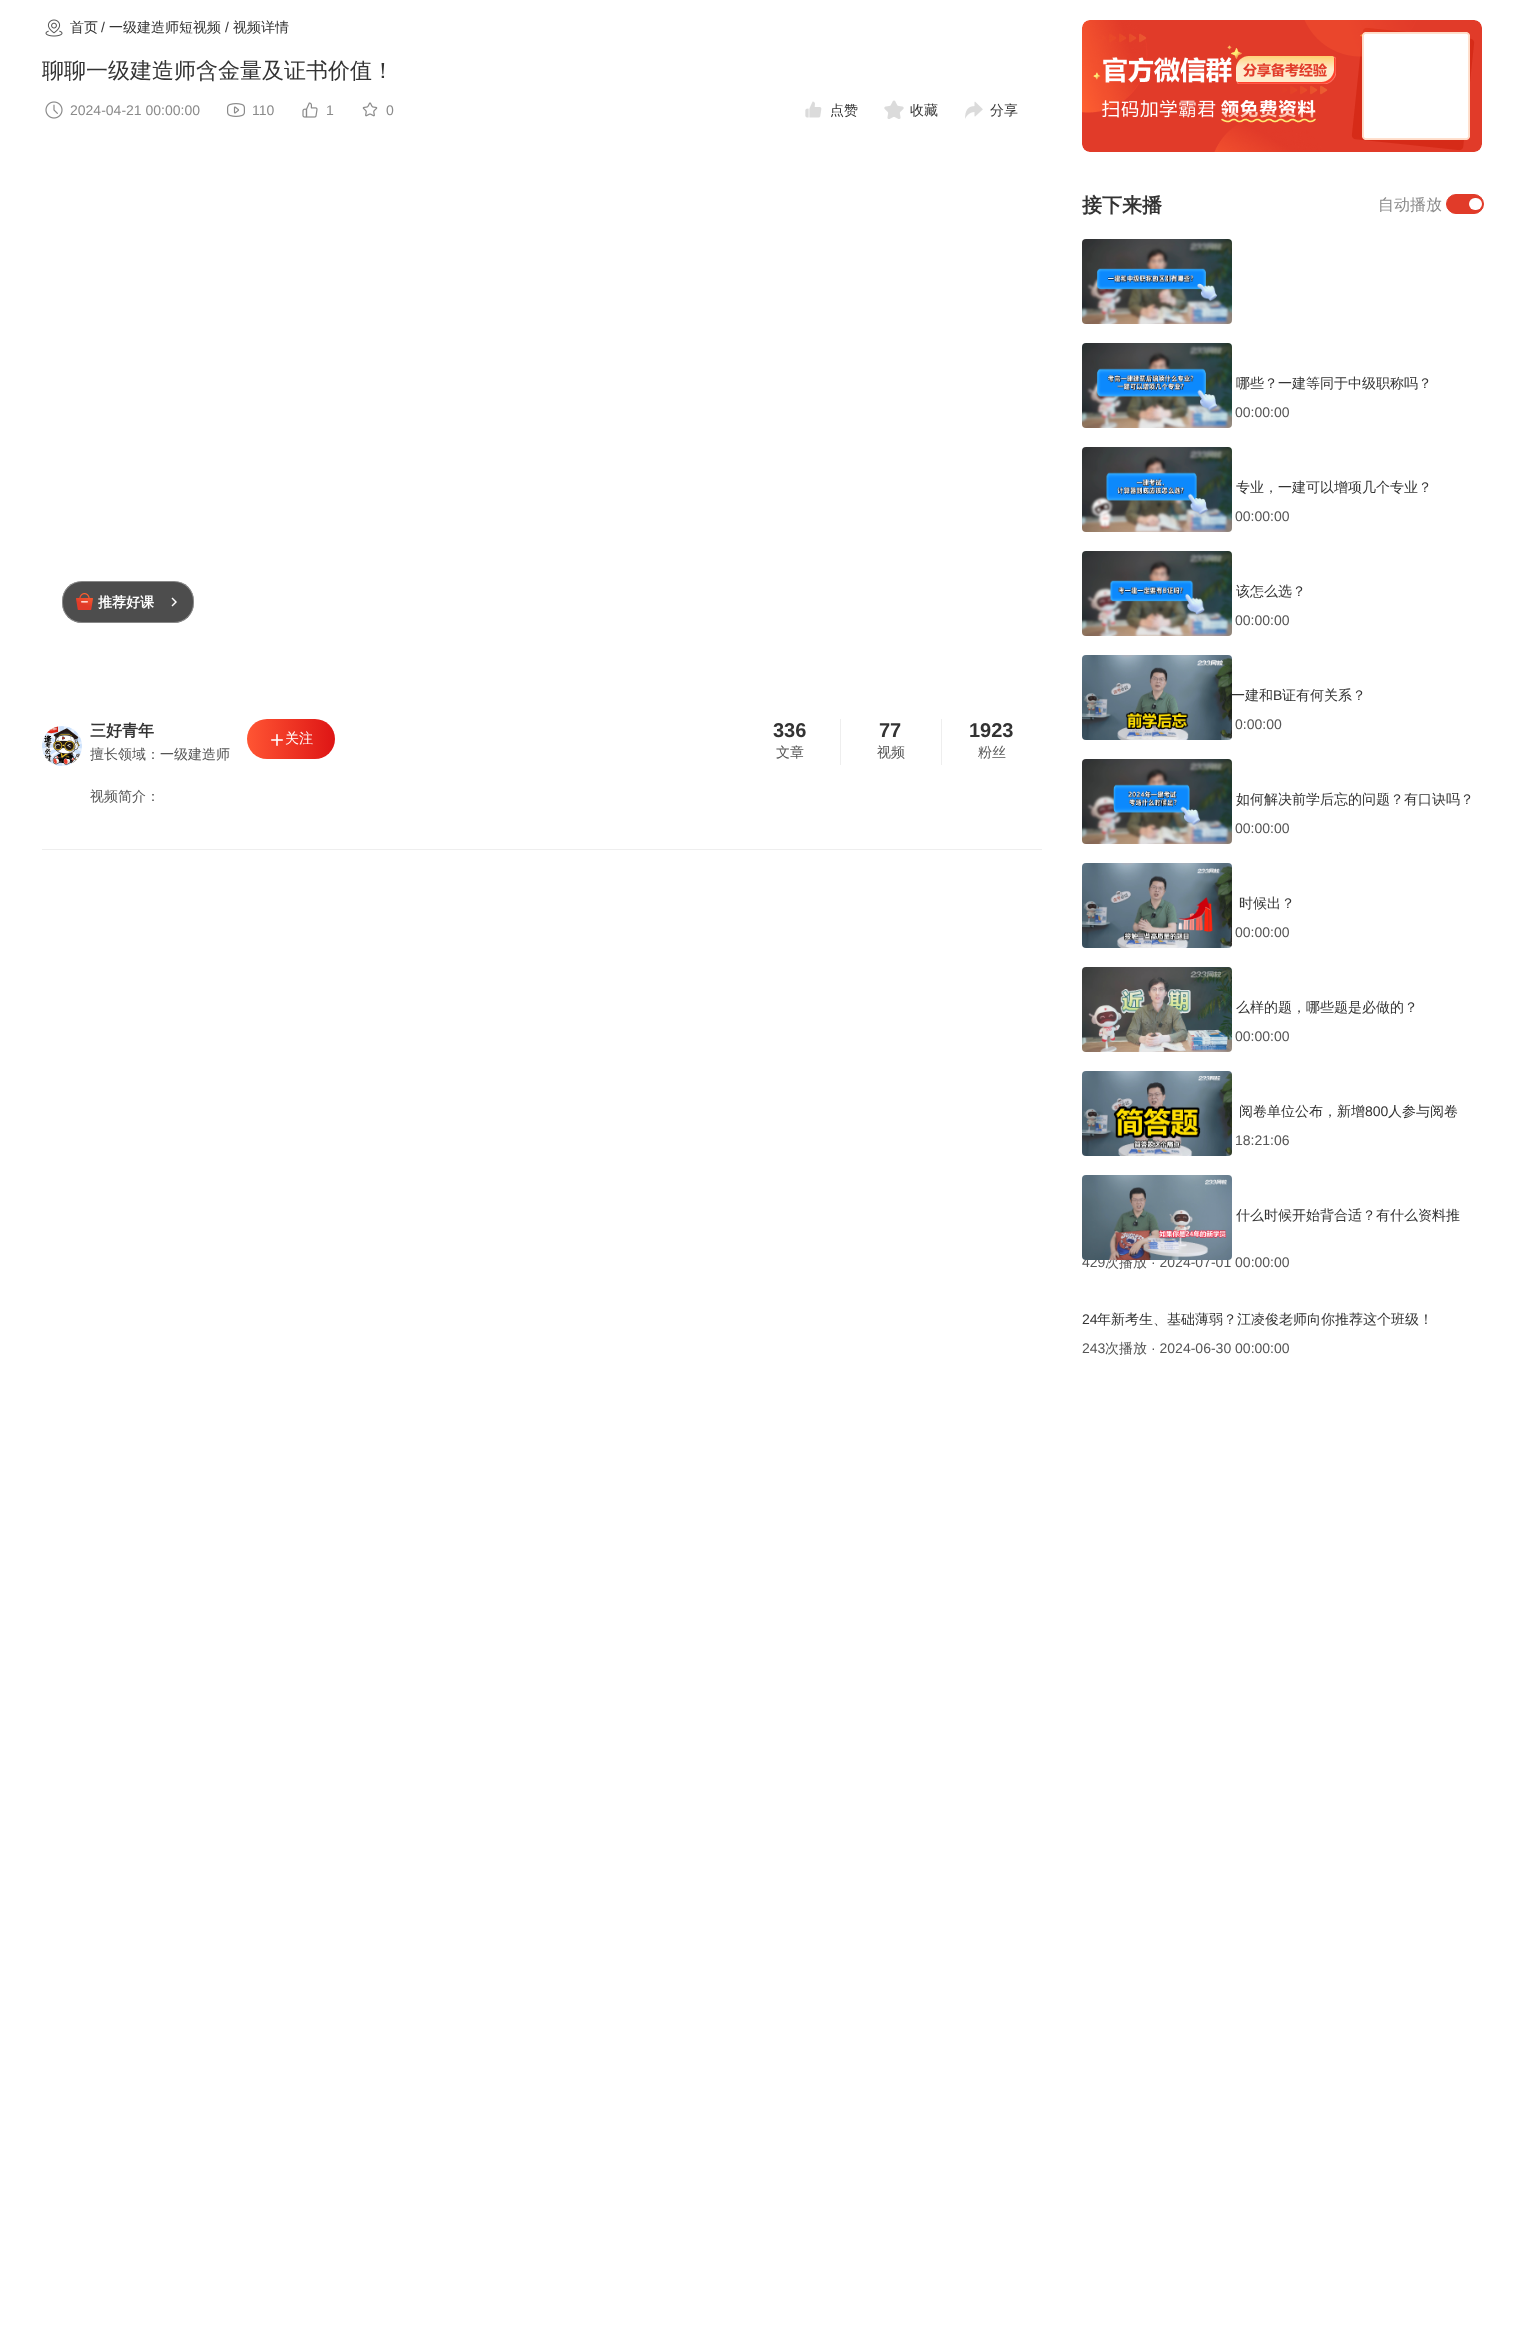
(async () => {
const canvas = document.querySelector("canvas")
canvas.width = 1523
canvas.height = 2341
const c = canvas.getContext("2d")
c.miterLimit = 4
c.fontKerning = "normal"
function T(s,x,y){c.fillText(s,x,y)}
function R(x,y,w,h){c.fillRect(x,y,w,h)}
function Q(x,y,w,h,r){c.beginPath();c.roundRect(x,y,w,h,r);c.fill()}
async function I(src,x,y,w,h){const img=new Image();img.src=src;await img.decode();c.drawImage(img,x,y,w,h)}
let gradient
c.fillStyle="#fff"
R(0,0,1523,2341)
await I("1.png",45,19,18,18)
c.font="500 14px WenQuanYi Zen Hei"
c.fillStyle="#333"
T("首页",70,32)
c.font="14px Liberation Sans"
T("/",101,32)
c.font="500 14px WenQuanYi Zen Hei"
T("一级建造师短视频",109,32)
c.font="14px Liberation Sans"
T("/",225,32)
c.font="500 14px WenQuanYi Zen Hei"
T("视频详情",233,32)
c.font="500 22px WenQuanYi Zen Hei"
T("聊聊一级建造师含金量及证书价值！",42,78)
await I("2.png",45,101,18,18)
c.font="14px Liberation Sans"
c.fillStyle="#8a8a8a"
T("2024-04-21 00:00:00",70,115)
await I("3.png",227,103,18,14)
T("110",252,115)
await I("4.png",302,102,16,16)
T("1",326,115)
await I("5.png",362,102,16,15)
T("0",386,115)
await I("6.png",805,101,17,17)
c.font="500 14px WenQuanYi Zen Hei"
c.fillStyle="#333"
T("点赞",830,115)
await I("7.png",884,100,20,19)
T("收藏",910,115)
await I("8.png",965,101,18,18)
T("分享",990,115)
c.fillStyle="#4d4d4d"
Q(62,581,132,42,20)
c.beginPath()
c.roundRect(62.5,581.5,131,41,19.5)
c.strokeStyle="#e1e1e166"
c.stroke()
await I("9.png",76,593,17,17)
c.font="bold 14px WenQuanYi Zen Hei"
c.fillStyle="#fff"
T("推荐好课",98,607)
await I("10.png",171,597,6,10)
c.fillStyle="#eee"
R(42,849,1000,1)
await I("11.png",42,726,40,40)
c.font="bold 16px WenQuanYi Zen Hei"
c.fillStyle="#333"
T("三好青年",90,736)
c.font="500 14px WenQuanYi Zen Hei"
c.fillStyle="#555"
T("擅长领域：一级建造师",90,759)
gradient = c.createLinearGradient(247,739,335,739)
gradient.addColorStop(0,"#f53")
gradient.addColorStop(1,"#de1515")
c.fillStyle = gradient
Q(247,719,88,40,20)
await I("12.png",271,734,12,12)
c.fillStyle="#fff"
T("关注",285,743)
c.fillStyle="#eee"
R(840,719,1,46)
c.font="bold 20px Liberation Sans"
c.fillStyle="#333"
T("336",773,737)
c.font="500 14px WenQuanYi Zen Hei"
c.fillStyle="#555"
T("文章",776,757)
c.fillStyle="#eee"
R(941,719,1,46)
c.font="bold 20px Liberation Sans"
c.fillStyle="#333"
T("77",879,737)
c.font="500 14px WenQuanYi Zen Hei"
c.fillStyle="#555"
T("视频",877,757)
c.font="bold 20px Liberation Sans"
c.fillStyle="#333"
T("1923",969,737)
c.font="500 14px WenQuanYi Zen Hei"
c.fillStyle="#555"
T("粉丝",978,757)
T("视频简介：",90,801)
await I("13.png",1082,20,400,132)
c.font="bold 20px WenQuanYi Zen Hei"
c.fillStyle="#333"
T("接下来播",1082,212)
c.font="500 16px WenQuanYi Zen Hei"
c.fillStyle="#8a8a8a"
T("自动播放",1378,210)
c.fillStyle="#e13b29"
c.beginPath()
c.roundRect(1446.5,194.5,37,19,9.5)
c.fill()
c.strokeStyle="#e13b29"
c.stroke()
c.fillStyle="#fff"
Q(1469,198,13,12,6)
await I("14.png",1082,239,150,85)
c.font="500 14px WenQuanYi Zen Hei"
c.fillStyle="#333"
T("哪些？一建等同于中级职称吗？",1236,388)
c.font="14px Liberation Sans"
c.fillStyle="#555"
T("00:00:00",1235,417)
await I("15.png",1082,343,150,85)
c.font="500 14px WenQuanYi Zen Hei"
c.fillStyle="#333"
T("专业，一建可以增项几个专业？",1236,492)
c.font="14px Liberation Sans"
c.fillStyle="#555"
T("00:00:00",1235,521)
await I("16.png",1082,447,150,85)
c.font="500 14px WenQuanYi Zen Hei"
c.fillStyle="#333"
T("该怎么选？",1236,596)
c.font="14px Liberation Sans"
c.fillStyle="#555"
T("00:00:00",1235,625)
await I("17.png",1082,551,150,85)
c.font="500 14px WenQuanYi Zen Hei"
c.fillStyle="#333"
T("一建和",1231,700)
c.font="14px Liberation Sans"
T("B",1273,700)
c.font="500 14px WenQuanYi Zen Hei"
T("证有何关系？",1282,700)
c.font="14px Liberation Sans"
c.fillStyle="#555"
T("0:00:00",1235,729)
await I("18.png",1082,655,150,85)
c.font="500 14px WenQuanYi Zen Hei"
c.fillStyle="#333"
T("如何解决前学后忘的问题？有口诀吗？",1236,804)
c.font="14px Liberation Sans"
c.fillStyle="#555"
T("00:00:00",1235,833)
await I("19.png",1082,759,150,85)
c.font="500 14px WenQuanYi Zen Hei"
c.fillStyle="#333"
T("时候出？",1239,908)
c.font="14px Liberation Sans"
c.fillStyle="#555"
T("00:00:00",1235,937)
await I("20.png",1082,863,150,85)
c.font="500 14px WenQuanYi Zen Hei"
c.fillStyle="#333"
T("么样的题，哪些题是必做的？",1236,1012)
c.font="14px Liberation Sans"
c.fillStyle="#555"
T("00:00:00",1235,1041)
await I("21.png",1082,967,150,85)
c.font="500 14px WenQuanYi Zen Hei"
c.fillStyle="#333"
T("阅卷单位公布，新增",1239,1116)
c.font="14px Liberation Sans"
T("800",1365,1116)
c.font="500 14px WenQuanYi Zen Hei"
T("人参与阅卷",1388,1116)
c.font="14px Liberation Sans"
c.fillStyle="#555"
T("18:21:06",1235,1145)
await I("22.png",1082,1071,150,85)
c.font="500 14px WenQuanYi Zen Hei"
c.fillStyle="#333"
T("什么时候开始背合适？有什么资料推",1236,1220)
c.font="14px Liberation Sans"
c.fillStyle="#555"
T("429",1082,1267)
c.font="500 14px WenQuanYi Zen Hei"
T("次播放",1105,1267)
c.font="14px Liberation Sans"
T("· 2024-07-01 00:00:00",1151,1267)
await I("23.png",1082,1175,150,85)
c.fillStyle="#333"
T("24",1082,1324)
c.font="500 14px WenQuanYi Zen Hei"
T("年新考生、基础薄弱？江凌俊老师向你推荐这个班级！",1097,1324)
c.font="14px Liberation Sans"
c.fillStyle="#555"
T("243",1082,1353)
c.font="500 14px WenQuanYi Zen Hei"
T("次播放",1105,1353)
c.font="14px Liberation Sans"
T("· 2024-06-30 00:00:00",1151,1353)
})()
